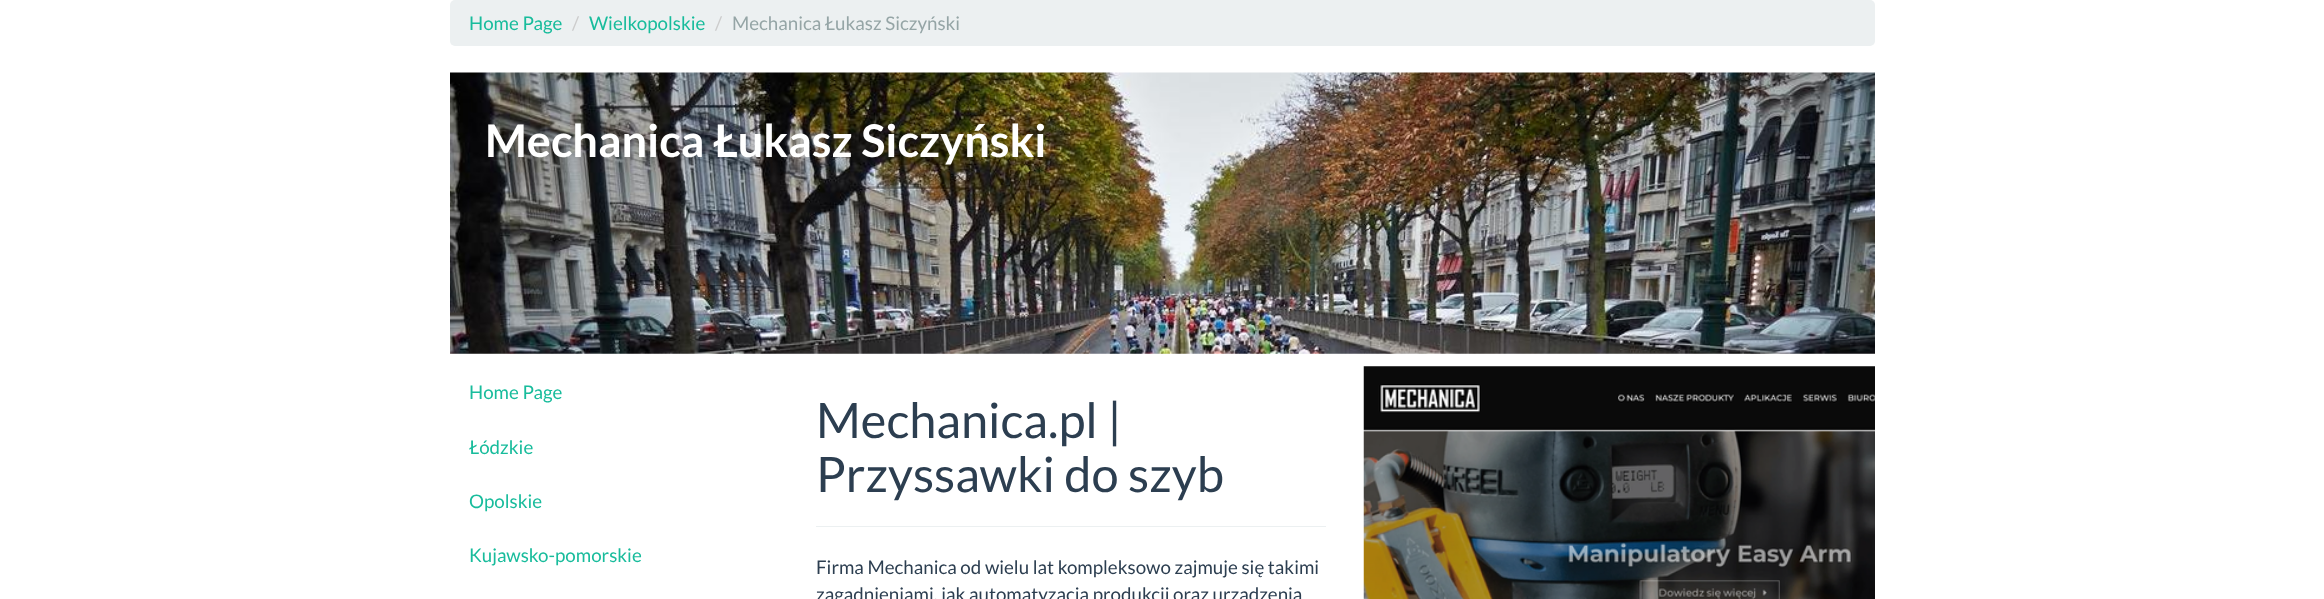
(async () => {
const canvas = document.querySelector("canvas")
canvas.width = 2324
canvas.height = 599
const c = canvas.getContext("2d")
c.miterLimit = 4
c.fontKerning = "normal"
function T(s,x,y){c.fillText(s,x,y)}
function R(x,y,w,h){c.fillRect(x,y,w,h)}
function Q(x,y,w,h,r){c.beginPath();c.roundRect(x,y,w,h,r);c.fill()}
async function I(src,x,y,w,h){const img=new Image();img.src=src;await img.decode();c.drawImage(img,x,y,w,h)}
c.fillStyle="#fff"
R(0,0,2324,599)
c.fillStyle="#ecf0f1"
Q(450,0,1425,46,5)
c.font="18.75px Lato"
c.fillStyle="#18bc9c"
T("Home Page",469,30)
c.fillStyle="#ccc"
T("/",572,30)
c.fillStyle="#18bc9c"
T("Wielkopolskie",589,30)
c.fillStyle="#ccc"
T("/",715,30)
c.fillStyle="#95a5a6"
T("Mechanica Łukasz Siczyński",732,30)
await I("1.png",450,72,1425,282)
c.font="bold 45px Lato"
c.fillStyle="#fff"
T("Mechanica Łukasz Siczyński",485,157)
c.font="18.75px Lato"
c.fillStyle="#18bc9c"
T("Home Page",469,399)
T("Łódzkie",469,454)
T("Opolskie",469,508)
T("Kujawsko-pomorskie",469,562)
c.font="48.75px Lato"
c.fillStyle="#2c3e50"
T("Mechanica.pl |",816,438)
T("Przyssawki do szyb",816,492)
c.fillStyle="#ecf0f1"
R(816,526,510,1)
c.font="18.75px Lato"
c.fillStyle="#2c3e50"
T("Firma Mechanica od wielu lat kompleksowo zajmuje się takimi",816,574)
T("zagadnieniami, jak automatyzacja produkcji oraz urządzenia",816,601)
await I("2.png",1363,366,512,233)
})()
